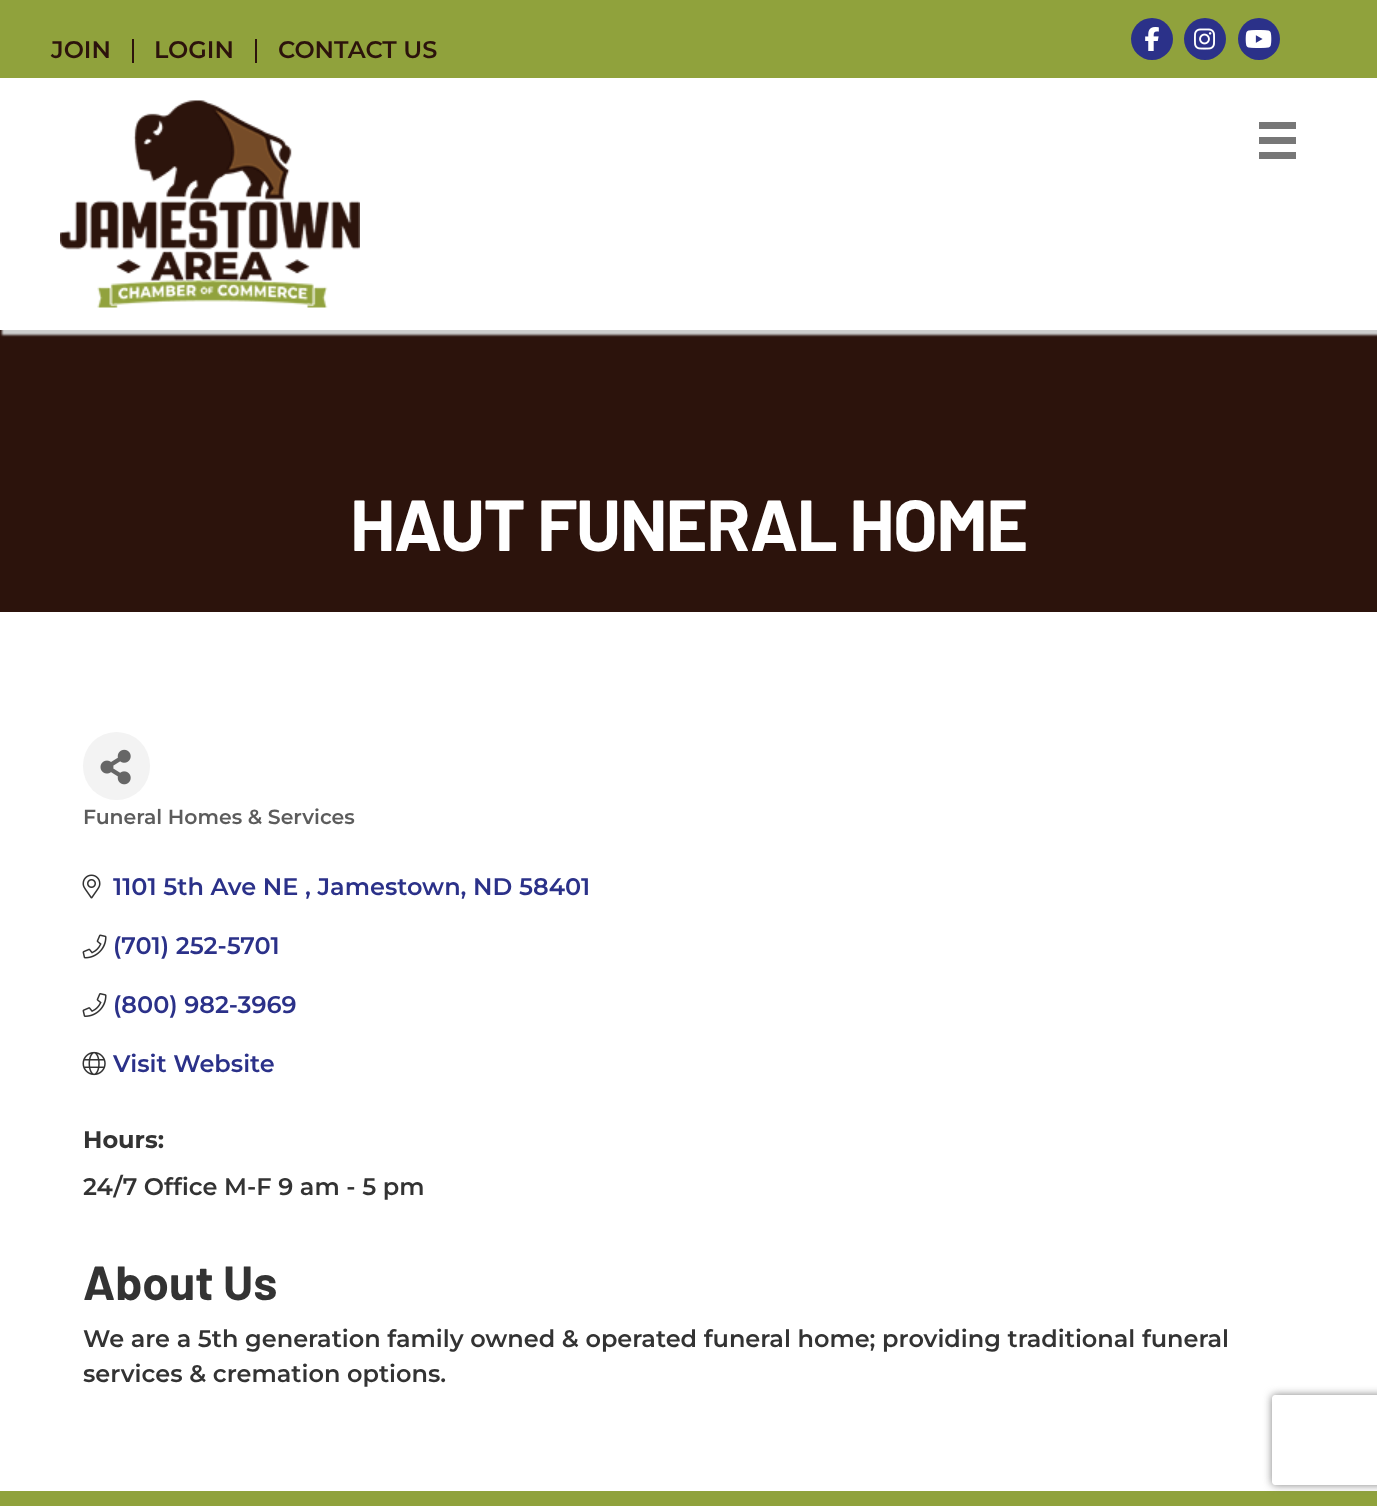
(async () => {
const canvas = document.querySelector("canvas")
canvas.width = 1377
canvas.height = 1506
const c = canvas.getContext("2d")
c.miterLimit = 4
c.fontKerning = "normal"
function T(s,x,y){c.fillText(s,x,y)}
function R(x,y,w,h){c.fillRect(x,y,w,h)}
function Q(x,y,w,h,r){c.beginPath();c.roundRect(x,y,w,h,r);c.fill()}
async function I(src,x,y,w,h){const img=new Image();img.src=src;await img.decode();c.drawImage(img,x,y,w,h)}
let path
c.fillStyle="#fff"
R(0,0,1377,1506)
c.fillStyle="#90a23c"
R(0,0,1377,78)
c.font="600 24px Montserrat"
c.fillStyle="#2c130c"
T("JOIN",51,58)
R(132,39,2,24)
T("LOGIN",154,58)
R(255,39,2,24)
T("CONTACT US",278,58)
c.fillStyle="#2b3189"
c.beginPath()
c.arc(1152,39,21,0,7)
c.fill()
await I("1.png",1145,27,14,24)
c.beginPath()
c.arc(1205,39,21,0,7)
c.fill()
await I("2.png",1194,28,21,22)
c.beginPath()
c.arc(1259,39,21,0,7)
c.fill()
await I("3.png",1245,30,27,18)
c.fillStyle="#2c130c"
R(0,330,1377,282)
c.save()
c.beginPath()
c.rect(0,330,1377,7)
c.clip()
c.fillStyle="#cdcdcd"
c.filter="blur(1px)"
c.beginPath()
c.rect(2,80,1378,255)
c.fill()
c.filter="none"
c.restore()
await I("4.png",60,100,300,208)
c.fillStyle="#777"
R(1259,122,37,7)
R(1259,137,37,7)
R(1259,152,37,7)
c.letterSpacing="-1.5px"
c.font="bold 72px Barlow"
c.fillStyle="#fff"
T("HAUT FUNERAL HOME",350,551)
c.fillStyle="#f3f3f3"
Q(83,732,67,68,33.5)
await I("5.png",100,749,31,36)
c.letterSpacing="0px"
c.font="600 20.4px Montserrat"
c.fillStyle="#5c5c5c"
T("Funeral Homes & Services",83,824)
await I("6.png",82,874,19,25)
c.font="600 24px Montserrat"
c.fillStyle="#2b3189"
T("1101 5th Ave NE , Jamestown, ND 58401",113,895)
await I("7.png",82,934,25,25)
T("(701) 252-5701",113,954)
await I("8.png",82,993,25,24)
T("(800) 982-3969",113,1013)
await I("9.png",82,1051,24,25)
T("Visit Website",113,1072)
c.font="bold 24px Montserrat"
c.fillStyle="#333"
T("Hours:",83,1148)
c.font="600 24px Montserrat"
T("24/7 Office M-F 9 am - 5 pm",83,1195)
c.font="bold 48px Barlow"
T("About Us",83,1300)
c.font="600 24px Montserrat"
T("We are a 5th generation family owned & operated funeral home; providing traditional funeral",83,1347)
T("services & cremation options.",83,1382)
c.fillStyle="#90a23c"
R(0,1491,1377,15)
c.save()
path = new Path2D("M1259 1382h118v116h-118zm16 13h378c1.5 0 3 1.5 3 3v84c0 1.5-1.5 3-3 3h-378c-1.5 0-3-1.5-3-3v-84c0-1.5 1.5-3 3-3z")
c.clip(path,"evenodd")
c.fillStyle="#808080"
c.filter="blur(4px)"
c.beginPath()
c.roundRect(1272,1395,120,90,3)
c.fill()
c.filter="none"
c.restore()
})()
